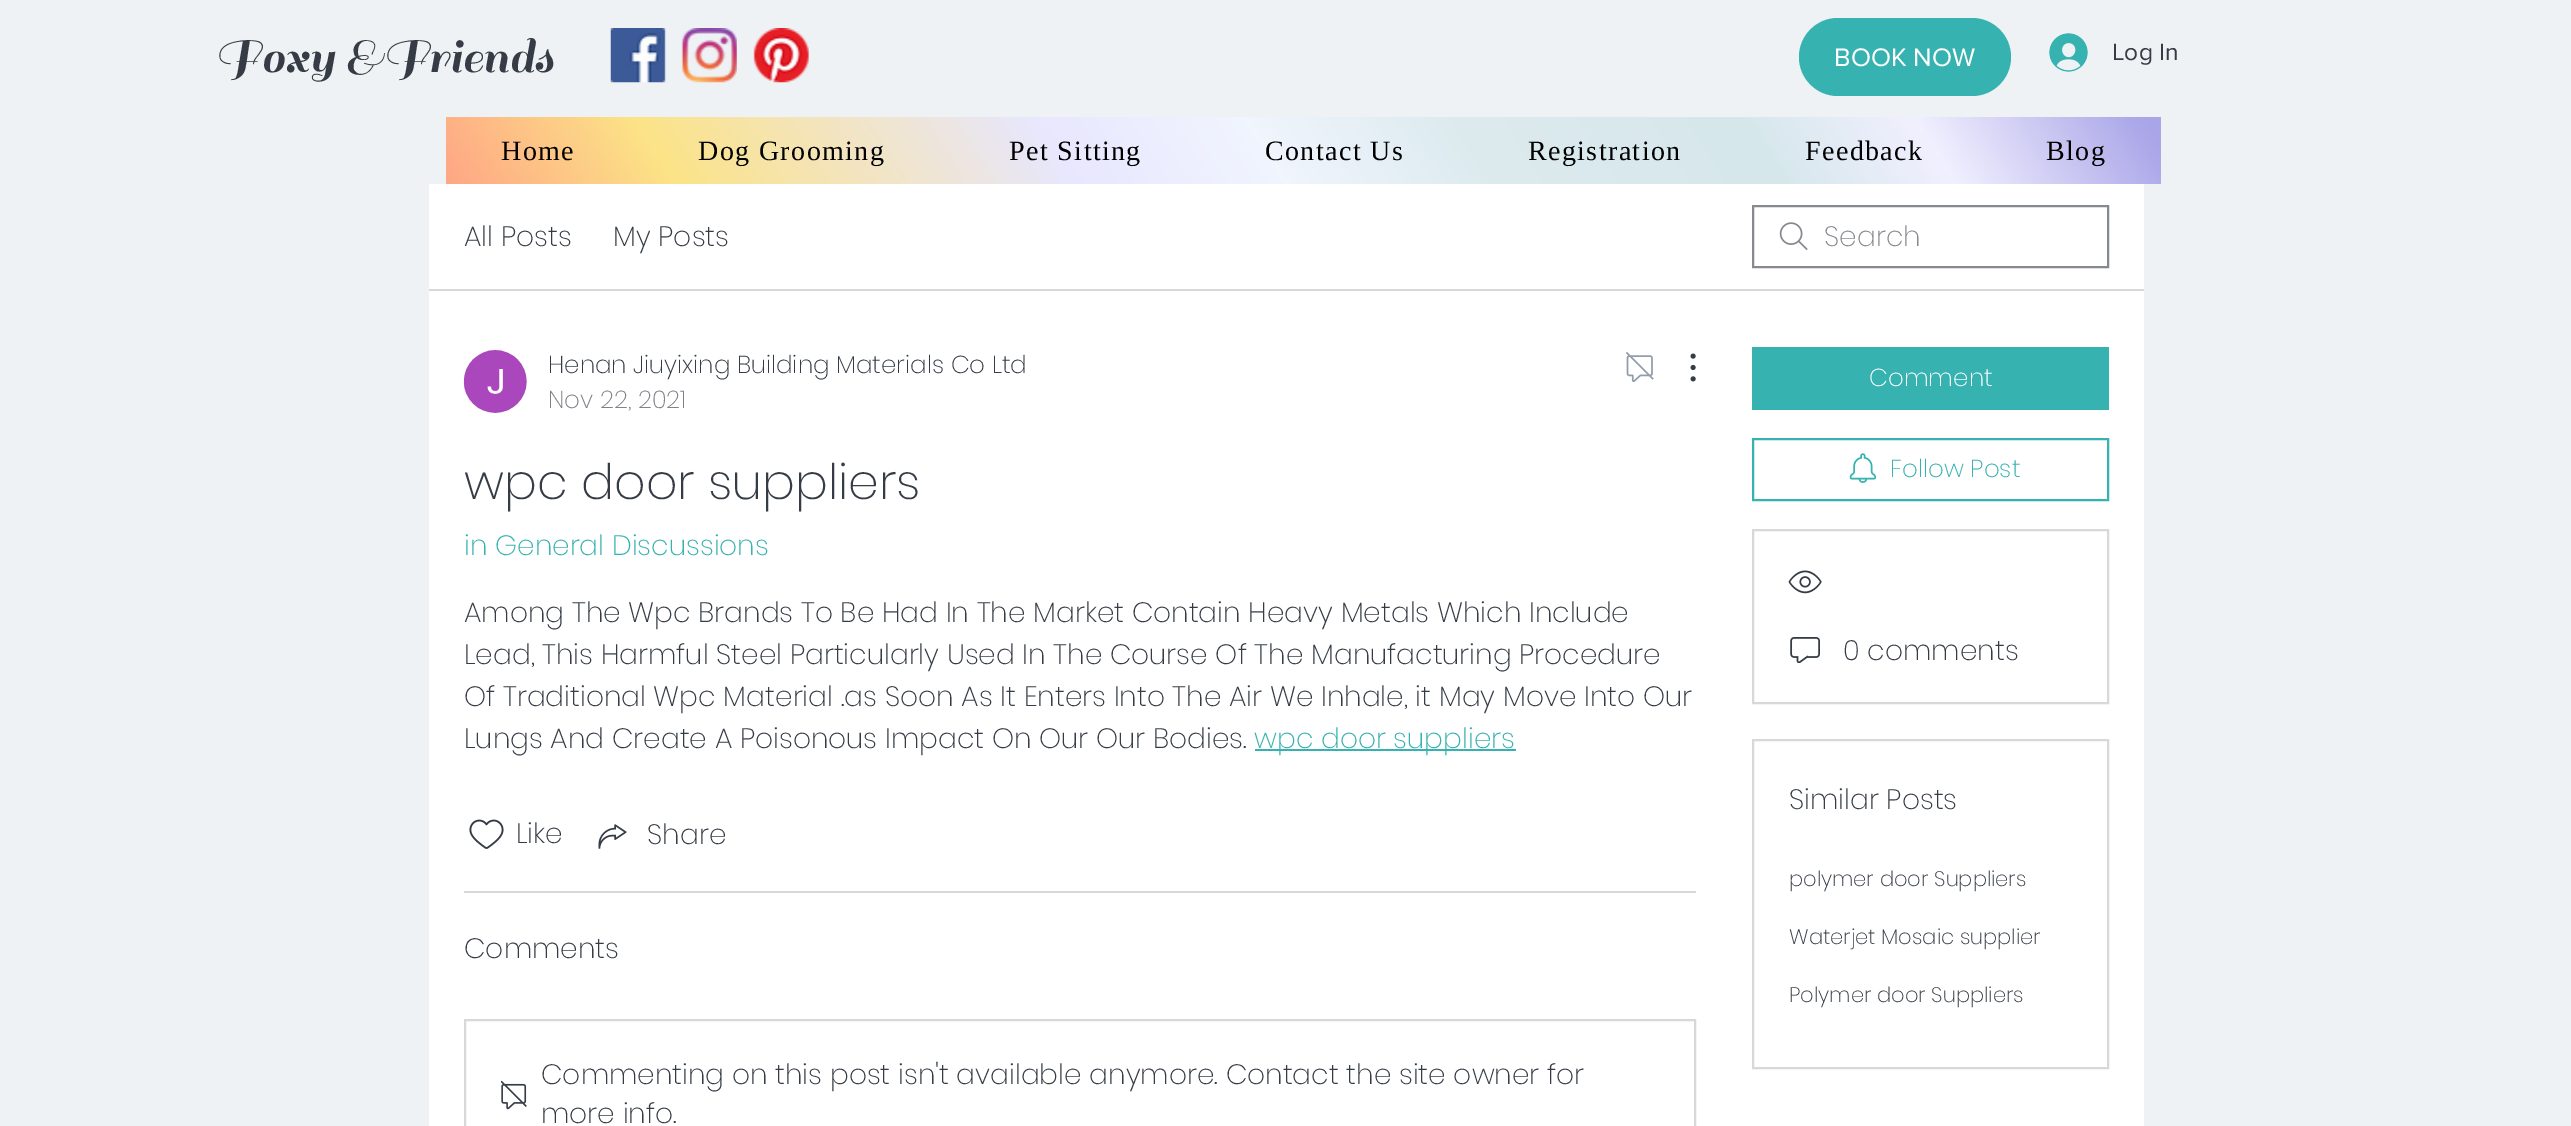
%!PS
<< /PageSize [2571 1126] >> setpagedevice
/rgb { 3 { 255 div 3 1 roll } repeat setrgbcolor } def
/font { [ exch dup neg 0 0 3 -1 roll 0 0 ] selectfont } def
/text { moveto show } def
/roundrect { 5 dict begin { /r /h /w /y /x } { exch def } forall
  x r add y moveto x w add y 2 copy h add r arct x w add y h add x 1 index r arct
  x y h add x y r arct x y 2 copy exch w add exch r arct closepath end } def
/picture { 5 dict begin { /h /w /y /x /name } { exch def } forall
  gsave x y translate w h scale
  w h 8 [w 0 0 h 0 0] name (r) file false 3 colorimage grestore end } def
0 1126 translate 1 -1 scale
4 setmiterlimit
239 242 245 rgb
0 0 2571 1126 rectfill
(img_01.rgb) 610 28 56 55 picture
(img_02.rgb) 681 28 56 55 picture
(img_03.rgb) 753 28 56 55 picture
54 178 176 rgb
1799 18 212 78 39 roundrect fill
(img_04.rgb) 2049 33 39 39 picture
gsave 446 117 moveto 1715 0 rlineto 0 67 rlineto -1715 0 rlineto closepath clip newpath
<< /ShadingType 2 /ColorSpace /DeviceRGB /Coords [672 545 1935 -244] /Extend [true true] /Function << /FunctionType 3 /Domain [0 1] /Functions [<< /FunctionType 2 /Domain [0 1] /C0 [1 0.651 0.522] /C1 [0.988 0.89 0.529] /N 1 >> << /FunctionType 2 /Domain [0 1] /C0 [0.988 0.89 0.529] /C1 [0.91 0.906 1] /N 1 >> << /FunctionType 2 /Domain [0 1] /C0 [0.91 0.906 1] /C1 [0.945 0.961 0.996] /N 1 >> << /FunctionType 2 /Domain [0 1] /C0 [0.945 0.961 0.996] /C1 [0.867 0.922 0.937] /N 1 >> << /FunctionType 2 /Domain [0 1] /C0 [0.867 0.922 0.937] /C1 [0.839 0.906 0.925] /N 1 >> << /FunctionType 2 /Domain [0 1] /C0 [0.839 0.906 0.925] /C1 [0.945 0.941 1] /N 1 >> << /FunctionType 2 /Domain [0 1] /C0 [0.945 0.941 1] /C1 [0.663 0.647 0.91] /N 1 >> << /FunctionType 2 /Domain [0 1] /C0 [0.663 0.647 0.91] /C1 [0.663 0.647 0.91] /N 1 >>] /Bounds [0.13 0.36 0.48 0.59 0.76 0.86 0.99] /Encode [0 1 0 1 0 1 0 1 0 1 0 1 0 1 0 1] >> >> shfill grestore
255 255 255 rgb
429 184 1715 942 rectfill
215 216 218 rgb
429 289 1715 2 rectfill
(img_05.rgb) 1779 222 29 29 picture
134 138 143 rgb
2 setlinewidth
1753 206 355 61 rectstroke
(img_06.rgb) 463 350 64 63 picture
(img_07.rgb) 1626 352 28 31 picture
(img_08.rgb) 1690 353 6 29 picture
54 178 176 rgb
1255 749 261 2 rectfill
(img_09.rgb) 469 819 35 30 picture
(img_10.rgb) 598 824 29 25 picture
215 216 218 rgb
464 891 1232 2 rectfill
465 1020 1230 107 rectstroke
(img_11.rgb) 501 1080 26 30 picture
54 178 176 rgb
1752 347 357 63 rectfill
1753 439 355 61 rectstroke
(img_12.rgb) 1849 453 27 30 picture
215 216 218 rgb
1753 530 355 173 rectstroke
(img_13.rgb) 1788 570 34 24 picture
(img_14.rgb) 1790 637 30 26 picture
1753 740 355 328 rectstroke
/Sail-Regular 52.5 font
54 60 69 rgb
(Foxy &Friends) 215 72 text
/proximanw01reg-Regular 26.25 font
255 255 255 rgb
(BOOK NOW) 1834 66 text
/proximanw01reg-Regular 24.5 font
54 60 69 rgb
(Log In) 2112 60 text
/LiberationSerif-Regular 28 font
0 0 0 rgb
501 160 moveto 1.4 0 (Home) ashow
698 160 moveto 1.4 0 (Dog Grooming) ashow
1009 160 moveto 1.4 0 (Pet Sitting) ashow
1265 160 moveto 1.4 0 (Contact Us) ashow
1528 160 moveto 1.4 0 (Registration) ashow
1805 160 moveto 1.4 0 (Feedback) ashow
2046 160 moveto 1.4 0 (Blog) ashow
/Poppins-ExtraLight 28 font
54 60 69 rgb
(All Posts) 464 246 text
(My Posts) 613 246 text
134 138 143 rgb
(Search) 1824 246 text
/Poppins-ExtraLight 24.5 font
54 60 69 rgb
(Henan Jiuyixing Building Materials Co Ltd) 548 373 text
126 130 136 rgb
(Nov 22, 2021) 548 408 text
/Poppins-ExtraLight 49 font
54 60 69 rgb
(wpc door suppliers) 464 499 text
/Poppins-ExtraLight 28 font
54 178 176 rgb
(in General Discussions) 464 555 text
54 60 69 rgb
(Among The Wpc Brands To Be Had In The Market Contain Heavy Metals Which Include) 464 622 text
(Lead, This Harmful Steel Particularly Used In The Course Of The Manufacturing Procedure) 464 664 text
(Of Traditional Wpc Material .as Soon As It Enters Into The Air We Inhale, it May Move Into Our) 464 706 text
(Lungs And Create A Poisonous Impact On Our Our Bodies.) 464 748 text
54 178 176 rgb
(wpc door suppliers) 1254 748 text
54 60 69 rgb
(Like) 516 843 text
(Share) 647 844 text
(Comments) 464 958 text
(Commenting on this post isn't available anymore. Contact the site owner for) 541 1084 text
(more info.) 541 1123 text
/Poppins-ExtraLight 24.5 font
255 255 255 rgb
(Comment) 1869 386 text
54 178 176 rgb
(Follow Post) 1890 477 text
/Poppins-ExtraLight 28 font
54 60 69 rgb
(0 comments) 1843 660 text
(Similar Posts) 1789 809 text
/Poppins-ExtraLight 21 font
(polymer door Suppliers) 1789 886 text
(Waterjet Mosaic supplier) 1789 944 text
(Polymer door Suppliers) 1789 1002 text
showpage
